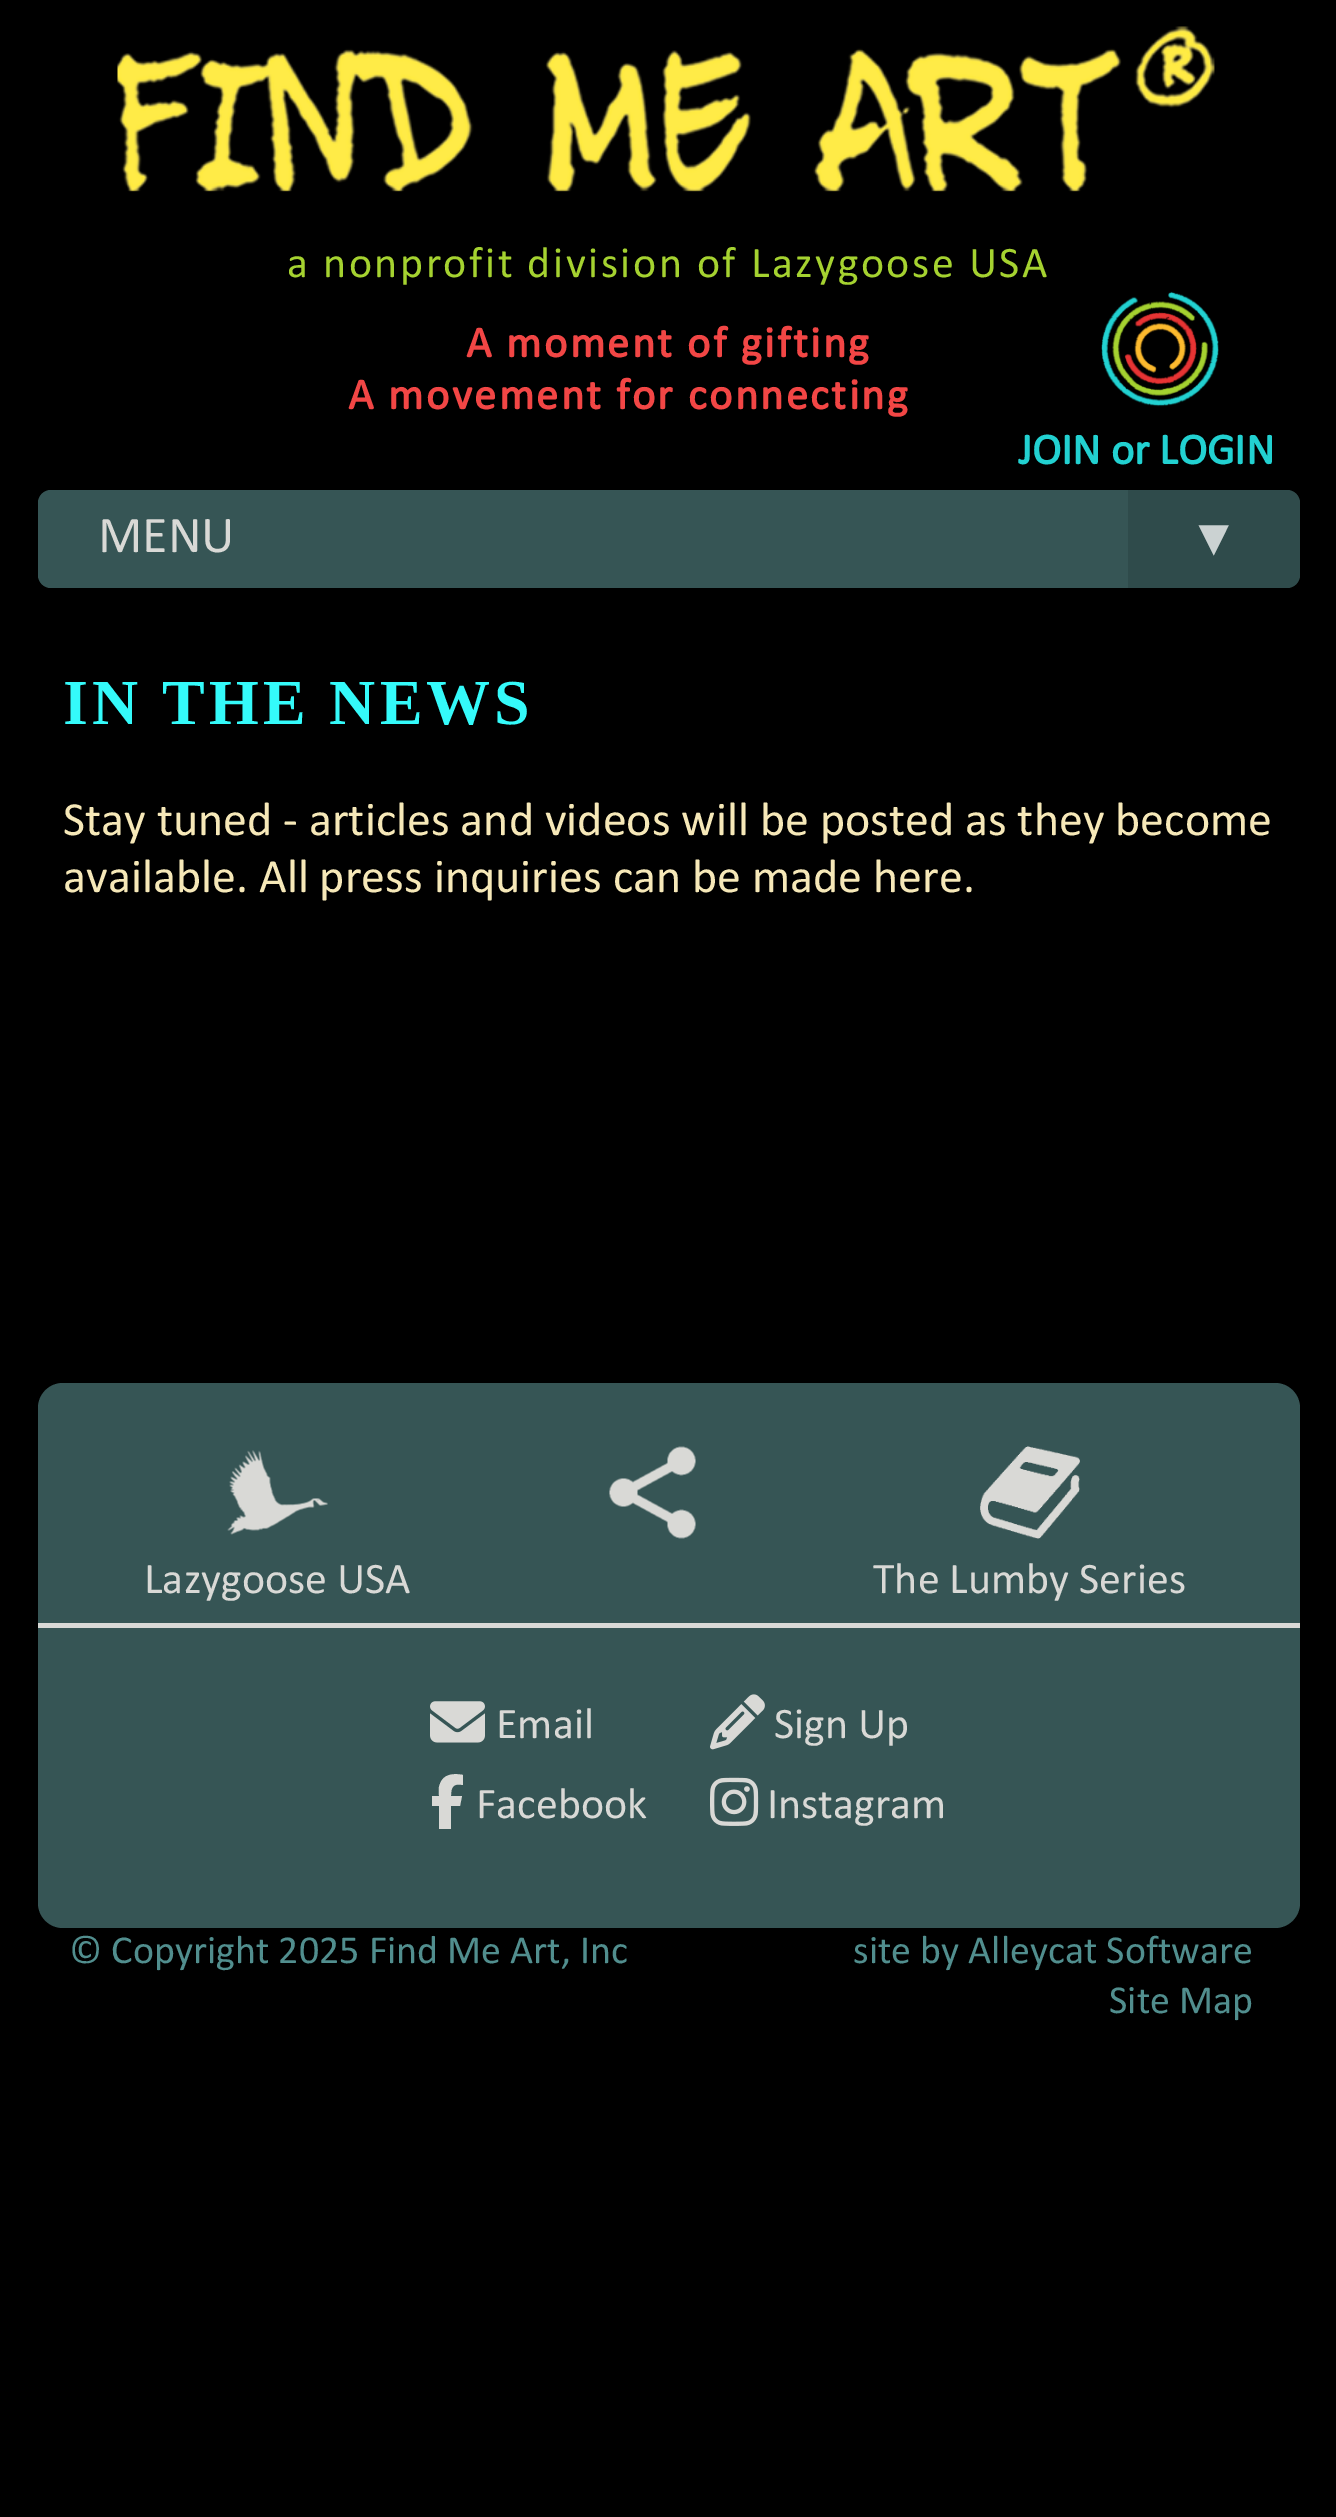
%!PS
<< /PageSize [1336 2517] /PageUsesTransparency true >> setpagedevice
/rgb { 3 { 255 div 3 1 roll } repeat setrgbcolor } def
/font { [ exch dup neg 0 0 3 -1 roll 0 0 ] selectfont } def
/text { moveto show } def
/alpha { dup .setfillconstantalpha .setstrokeconstantalpha } def
/roundrect { 5 dict begin { /r /h /w /y /x } { exch def } forall
  x r add y moveto x w add y 2 copy h add r arct x w add y h add x 1 index r arct
  x y h add x y r arct x y 2 copy exch w add exch r arct closepath end } def
/picture { 5 dict begin { /h /w /y /x /name } { exch def } forall
  gsave x y translate w h scale
  w h 8 [w 0 0 h 0 0] name (r) file false 3 colorimage grestore end } def
0 .pushpdf14devicefilter
0 2517 translate 1 -1 scale
4 setmiterlimit
0 0 0 rgb
0 0 1336 2517 rectfill
(img_01.rgb) 117 26 1098 166 picture
(img_02.rgb) 1101 291 118 116 picture
54 85 85 rgb
38 490 1262 98 13 roundrect fill
38 490 1262 98 15 roundrect fill
0.12 alpha
0 0 0 rgb
1128 490 172 98 rectfill
1 alpha
54 85 85 rgb
38 1383 1262 545 25 roundrect fill
217 217 214 rgb
38 1623 1262 5 rectfill
(img_03.rgb) 609 1446 87 93 picture
(img_04.rgb) 227 1450 101 85 picture
(img_05.rgb) 980 1446 100 93 picture
(img_06.rgb) 430 1701 55 42 picture
(img_07.rgb) 710 1694 55 56 picture
439 1806 moveto 0 23 rlineto 0 -23 rlineto 0 23 rlineto 12 0 rlineto 0 -23 rlineto 9 0 rlineto 2 -10 rlineto -11 0 rlineto 0 -9 2 -13 12 -11 rcurveto 0 -10 rlineto -9 -2 -20 -1 -23 9 rcurveto -2 4 -1 8 -1 12 rcurveto -7 0 rlineto 0 10 rlineto closepath fill
(img_08.rgb) 710 1777 49 49 picture
/Calibri-Regular 44 font
165 210 48 rgb
287 277 moveto 2.5 0 (a nonprofit division of Lazygoose USA) ashow
/Calibri-Bold 44 font
242 70 69 rgb
466 357 moveto 2.5 0 (A moment of gifting) ashow
348 409 moveto 2.5 0 (A movement for connecting) ashow
34 209 209 rgb
(JOIN or LOGIN) 1018 464 text
/Calibri-Regular 52 font
217 217 214 rgb
(MENU) 98 552 text
/LiberationSans-Regular 52 font
203 210 210 rgb
(▼) 1188 555 text
/LiberationSerif-Bold 64 font
52 250 250 rgb
63 724 moveto 4 0 (IN THE NEWS) ashow
/Calibri-Regular 48 font
246 232 184 rgb
(Stay tuned - articles and videos will be posted as they become) 63 835 text
(available. All press inquiries can be made here) 63 892 text
(.) 963 892 text
/Calibri-Regular 44 font
217 217 214 rgb
(Lazygoose USA) 144 1593 text
(The Lumby Series) 873 1593 text
(Email) 496 1738 text
(Sign Up) 774 1738 text
(Facebook) 476 1818 text
(Instagram) 767 1818 text
/Calibri-Regular 40 font
81 142 142 rgb
(© Copyright 2025 Find Me Art, Inc) 69 1963 text
(site by Alleycat Software) 853 1963 text
(Site Map) 1109 2013 text
.poppdf14devicefilter showpage
